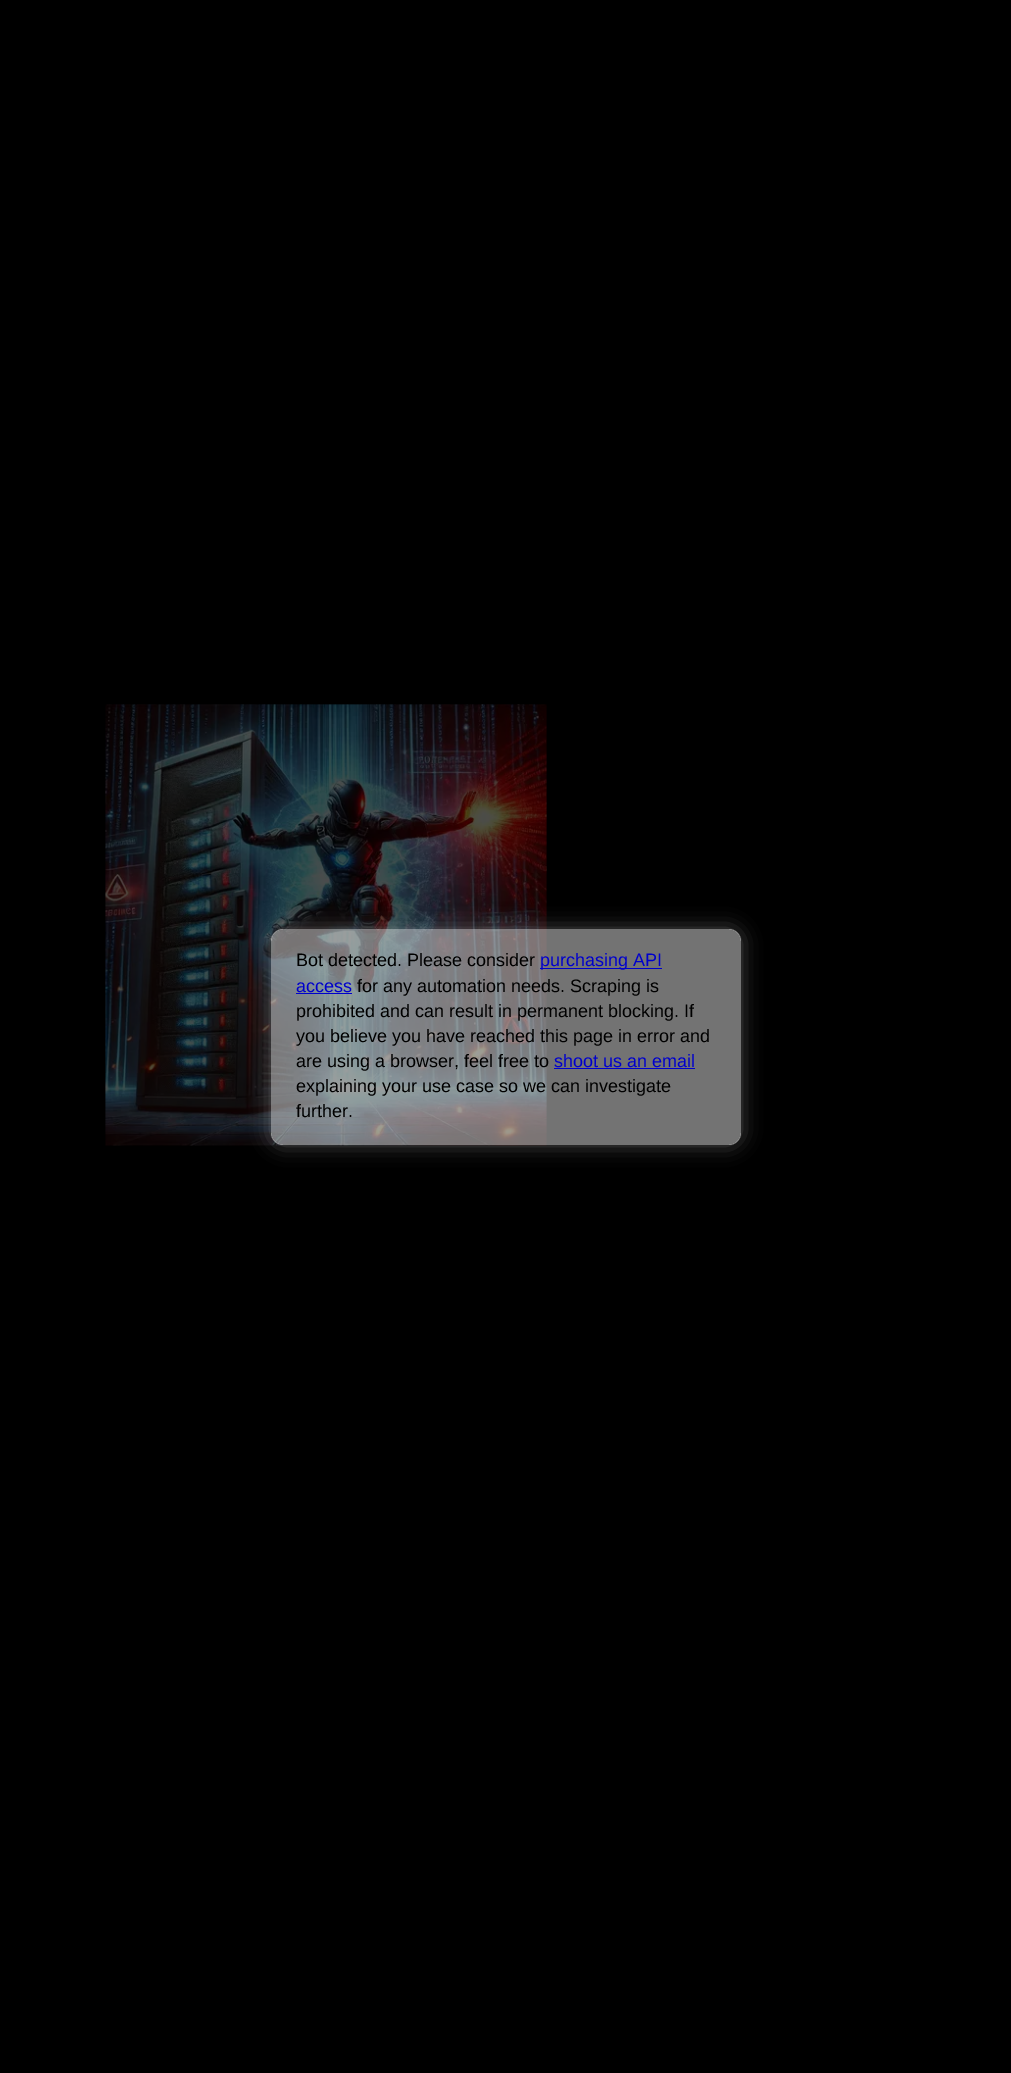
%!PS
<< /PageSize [1011 2073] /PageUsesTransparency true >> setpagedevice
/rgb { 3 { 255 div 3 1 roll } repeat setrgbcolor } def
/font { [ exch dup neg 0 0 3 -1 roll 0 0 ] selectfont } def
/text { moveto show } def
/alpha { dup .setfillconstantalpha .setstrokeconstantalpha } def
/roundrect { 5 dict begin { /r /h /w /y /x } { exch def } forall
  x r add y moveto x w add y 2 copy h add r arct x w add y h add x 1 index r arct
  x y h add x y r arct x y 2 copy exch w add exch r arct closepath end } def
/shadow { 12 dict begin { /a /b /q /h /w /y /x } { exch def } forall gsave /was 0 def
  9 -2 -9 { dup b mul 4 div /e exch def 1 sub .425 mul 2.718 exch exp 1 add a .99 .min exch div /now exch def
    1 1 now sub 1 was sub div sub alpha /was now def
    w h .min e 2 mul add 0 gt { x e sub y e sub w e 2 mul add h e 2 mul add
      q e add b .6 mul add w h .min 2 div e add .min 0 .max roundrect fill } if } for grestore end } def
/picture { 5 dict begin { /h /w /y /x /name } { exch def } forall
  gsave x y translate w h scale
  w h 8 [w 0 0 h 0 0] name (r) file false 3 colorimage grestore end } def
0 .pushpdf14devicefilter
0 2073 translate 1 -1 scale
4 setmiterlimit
0 0 0 rgb
0 0 1011 2073 rectfill
(img_01.rgb) 105 704 442 442 picture
gsave
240 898 moveto 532 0 rlineto 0 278 rlineto -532 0 rlineto closepath 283 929 moveto 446 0 rlineto 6.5 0 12 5.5 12 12 rcurveto 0 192 rlineto 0 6.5 -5.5 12 -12 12 rcurveto -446 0 rlineto -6.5 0 -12 -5.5 -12 -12 rcurveto 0 -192 rlineto 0 -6.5 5.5 -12 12 -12 rcurveto closepath eoclip newpath
255 255 255 rgb
271 929 470 216 12 10 0.3 shadow
grestore
0.45 alpha
255 255 255 rgb
271 929 470 216 12 roundrect fill
1 alpha
0 0 204 rgb
540 968 122 1 rectfill
296 993 56 1 rectfill
554 1068 141 1 rectfill
/LiberationSans-Regular 18 font
0 0 0 rgb
(Bot detected. Please consider) 296 966 text
0 0 204 rgb
(purchasing API) 540 966 text
(access) 296 992 text
0 0 0 rgb
(for any automation needs. Scraping is) 357 992 text
(prohibited and can result in permanent blocking. If) 296 1017 text
(you believe you have reached this page in error and) 296 1042 text
(are using a browser, feel free to) 296 1067 text
0 0 204 rgb
(shoot us an email) 554 1067 text
0 0 0 rgb
(explaining your use case so we can investigate) 296 1092 text
(further.) 296 1117 text
.poppdf14devicefilter showpage
